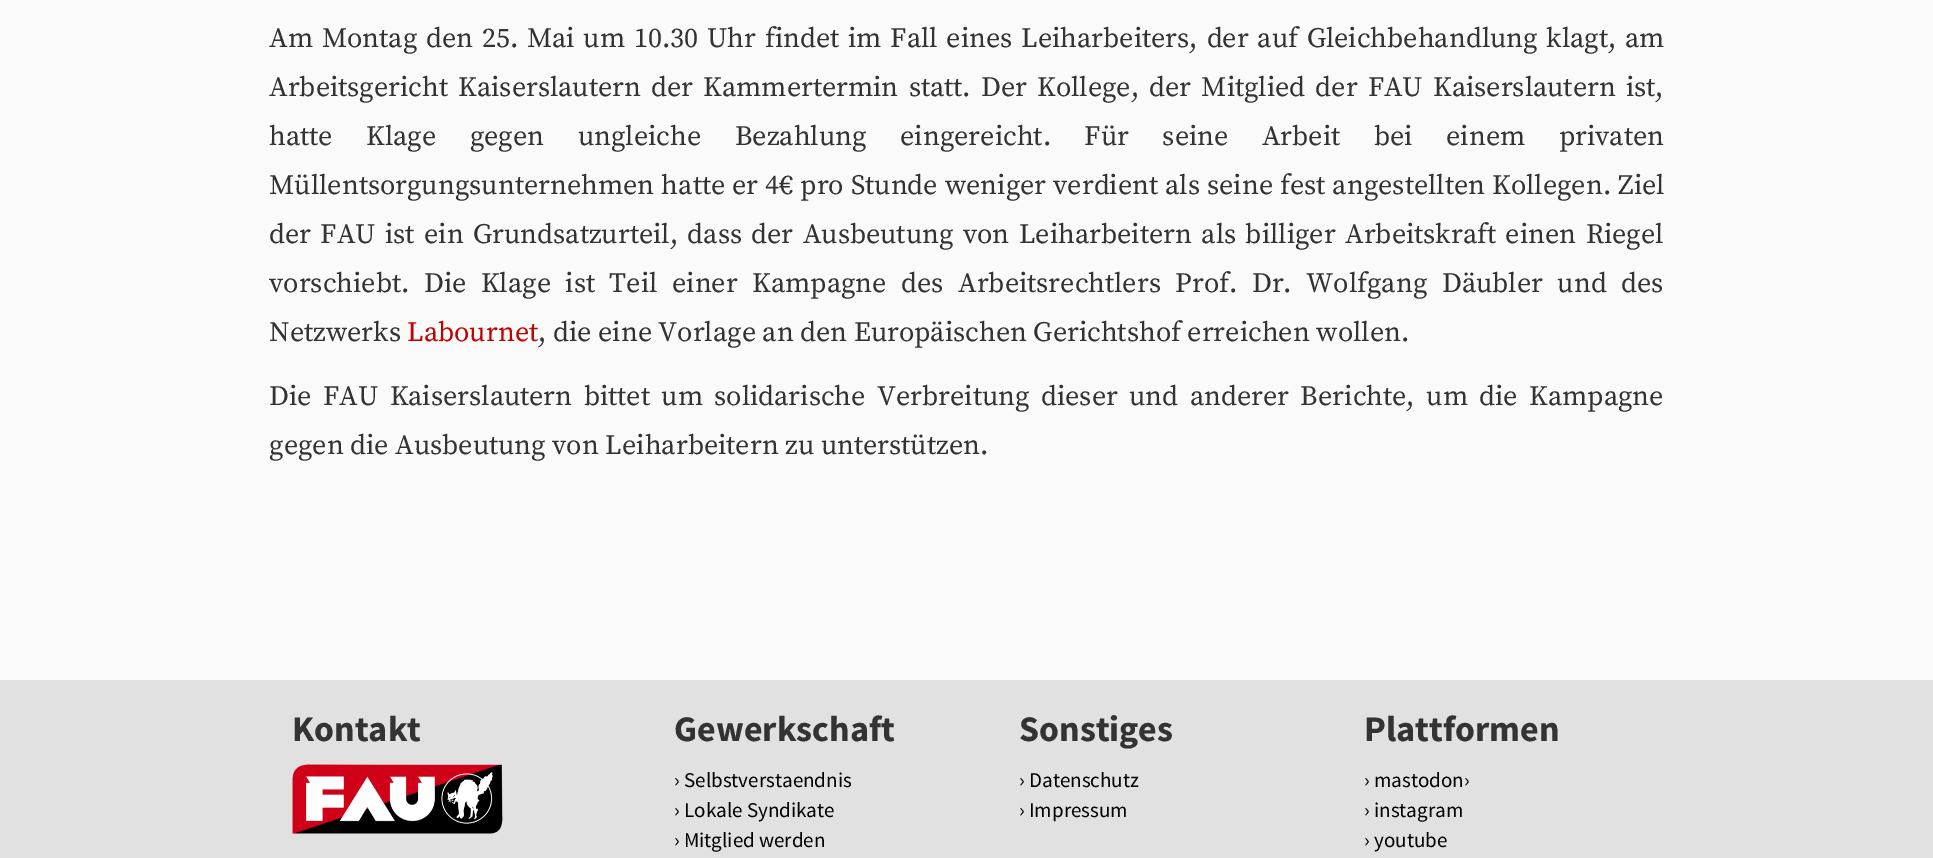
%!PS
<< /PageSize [1933 858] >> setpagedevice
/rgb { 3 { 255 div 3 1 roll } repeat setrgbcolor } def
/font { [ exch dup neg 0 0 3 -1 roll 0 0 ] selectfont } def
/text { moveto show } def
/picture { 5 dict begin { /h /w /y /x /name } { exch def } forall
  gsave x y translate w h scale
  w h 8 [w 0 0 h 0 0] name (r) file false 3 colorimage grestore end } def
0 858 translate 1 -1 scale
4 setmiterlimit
250 250 250 rgb
0 0 1933 858 rectfill
225 225 225 rgb
0 680 1933 178 rectfill
(img_01.rgb) 292 764 211 70 picture
/SourceSerifPro-Regular 28 font
51 51 51 rgb
269 47 moveto 2.25 0 32 (Am Montag den 25. Mai um 10.30 Uhr findet im Fall eines Leiharbeiters, der auf Gleichbehandlung klagt, am) widthshow
269 96 moveto 3.6 0 32 (Arbeitsgericht Kaiserslautern der Kammertermin statt. Der Kollege, der Mitglied der FAU Kaiserslautern ist,) widthshow
269 145 moveto 27 0 32 (hatte Klage gegen ungleiche Bezahlung eingereicht. Für seine Arbeit bei einem privaten) widthshow
269 194 moveto 0.5 0 32 (Müllentsorgungsunternehmen hatte er 4€ pro Stunde weniger verdient als seine fest angestellten Kollegen. Ziel) widthshow
269 243 moveto 2.9 0 32 (der FAU ist ein Grundsatzurteil, dass der Ausbeutung von Leiharbeitern als billiger Arbeitskraft einen Riegel) widthshow
269 292 moveto 8 0 32 (vorschiebt. Die Klage ist Teil einer Kampagne des Arbeitsrechtlers Prof. Dr. Wolfgang Däubler und des) widthshow
(Netzwerks) 269 341 text
192 3 1 rgb
(Labournet) 407 341 text
51 51 51 rgb
(, die eine Vorlage an den Europäischen Gerichtshof erreichen wollen.) 538 341 text
269 405 moveto 4.9 0 32 (Die FAU Kaiserslautern bittet um solidarische Verbreitung dieser und anderer Berichte, um die Kampagne) widthshow
(gegen die Ausbeutung von Leiharbeitern zu unterstützen.) 269 454 text
/SourceSansPro-Bold 36 font
(Kontakt) 292 741 text
(Gewerkschaft) 674 741 text
/SourceSansPro-Regular 21 font
0 0 0 rgb
(› Selbstverstaendnis) 674 787 text
(› Lokale Syndikate) 674 817 text
(› Mitglied werden) 674 847 text
/SourceSansPro-Bold 36 font
51 51 51 rgb
(Sonstiges) 1019 741 text
/SourceSansPro-Regular 21 font
0 0 0 rgb
(› Datenschutz) 1019 787 text
(› Impressum) 1019 817 text
/SourceSansPro-Bold 36 font
51 51 51 rgb
(Plattformen) 1364 741 text
/SourceSansPro-Regular 21 font
0 0 0 rgb
(› mastodon›) 1364 787 text
(› instagram) 1364 817 text
(› youtube) 1364 847 text
showpage
